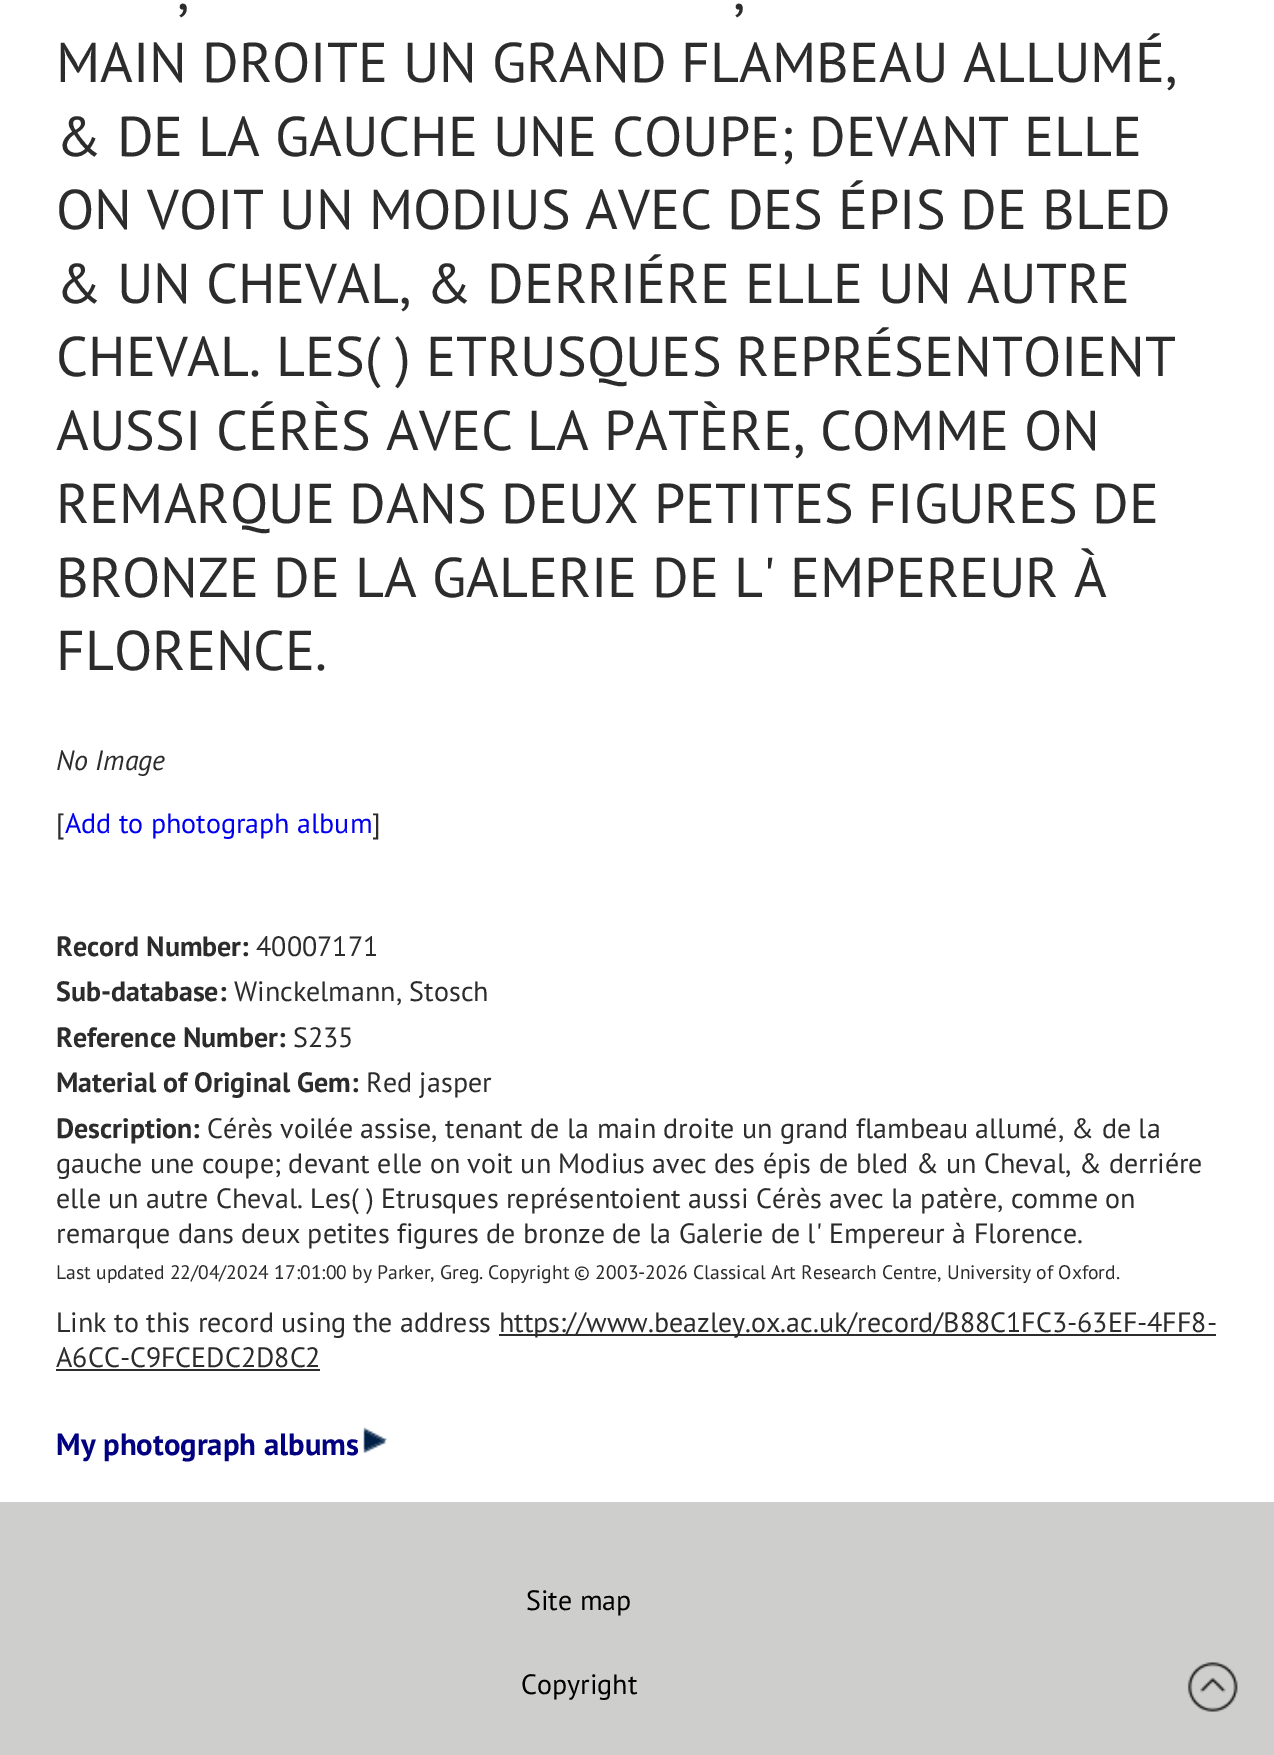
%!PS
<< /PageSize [1274 1755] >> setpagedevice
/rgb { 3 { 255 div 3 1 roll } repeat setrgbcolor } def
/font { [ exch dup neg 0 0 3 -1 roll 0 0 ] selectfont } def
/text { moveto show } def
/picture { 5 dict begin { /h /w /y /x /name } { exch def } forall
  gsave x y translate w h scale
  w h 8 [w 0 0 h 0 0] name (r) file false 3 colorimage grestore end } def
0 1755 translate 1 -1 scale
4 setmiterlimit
255 255 255 rgb
0 0 1274 1755 rectfill
44 44 44 rgb
499 1334 717 2 rectfill
56 1369 264 2 rectfill
(img_01.rgb) 363 1427 24 26 picture
206 206 204 rgb
0 1502 1274 253 rectfill
(img_02.rgb) 1187 1662 51 50 picture
/PTSans-Regular 56 font
44 44 44 rgb
(,) 177 9 text
(,) 733 9 text
(MAIN DROITE UN GRAND FLAMBEAU ALLUMÉ,) 56 82 text
(& DE LA GAUCHE UNE COUPE; DEVANT ELLE) 56 156 text
(ON VOIT UN MODIUS AVEC DES ÉPIS DE BLED) 56 229 text
(& UN CHEVAL, & DERRIÉRE ELLE UN AUTRE) 56 303 text
(CHEVAL. LES\( \) ETRUSQUES REPRÉSENTOIENT) 56 376 text
(AUSSI CÉRÈS AVEC LA PATÈRE, COMME ON) 56 450 text
(REMARQUE DANS DEUX PETITES FIGURES DE) 56 523 text
(BRONZE DE LA GALERIE DE L' EMPEREUR À) 56 597 text
(FLORENCE.) 56 670 text
/PTSans-Italic 28 font
(No Image) 56 770 text
/PTSans-Regular 28 font
([) 56 833 text
0 0 238 rgb
(Add to photograph album) 65 833 text
44 44 44 rgb
(]) 372 833 text
/PTSans-Bold 28 font
(Record Number:) 56 956 text
/PTSans-Regular 28 font
(40007171) 256 956 text
/PTSans-Bold 28 font
(Sub-database:) 56 1001 text
/PTSans-Regular 28 font
(Winckelmann, Stosch) 234 1001 text
/PTSans-Bold 28 font
(Reference Number:) 56 1047 text
/PTSans-Regular 28 font
(S235) 293 1047 text
/PTSans-Bold 28 font
(Material of Original Gem:) 56 1092 text
/PTSans-Regular 28 font
(Red jasper) 366 1092 text
/PTSans-Bold 28 font
(Description:) 56 1138 text
/PTSans-Regular 28 font
(Cérès voilée assise, tenant de la main droite un grand flambeau allumé, & de la) 207 1138 text
(gauche une coupe; devant elle on voit un Modius avec des épis de bled & un Cheval, & derriére) 56 1173 text
(elle un autre Cheval. Les\( \) Etrusques représentoient aussi Cérès avec la patère, comme on) 56 1208 text
(remarque dans deux petites figures de bronze de la Galerie de l' Empereur à Florence.) 56 1243 text
/PTSans-Regular 19.6 font
(Last updated 22/04/2024 17:01:00 by Parker, Greg.) 56 1279 text
(Copyright © 2003-2026 Classical Art Research Centre, University of Oxford.) 488 1279 text
/PTSans-Regular 28 font
(Link to this record using the address) 56 1332 text
(https://www.beazley.ox.ac.uk/record/B88C1FC3-63EF-4FF8-) 499 1332 text
(A6CC-C9FCEDC2D8C2) 56 1367 text
/PTSans-Bold 30.75 font
0 0 128 rgb
(My photograph albums) 56 1455 text
/PTSans-Regular 28 font
0 0 0 rgb
(Site map) 526 1610 text
(Copyright) 521 1694 text
showpage
